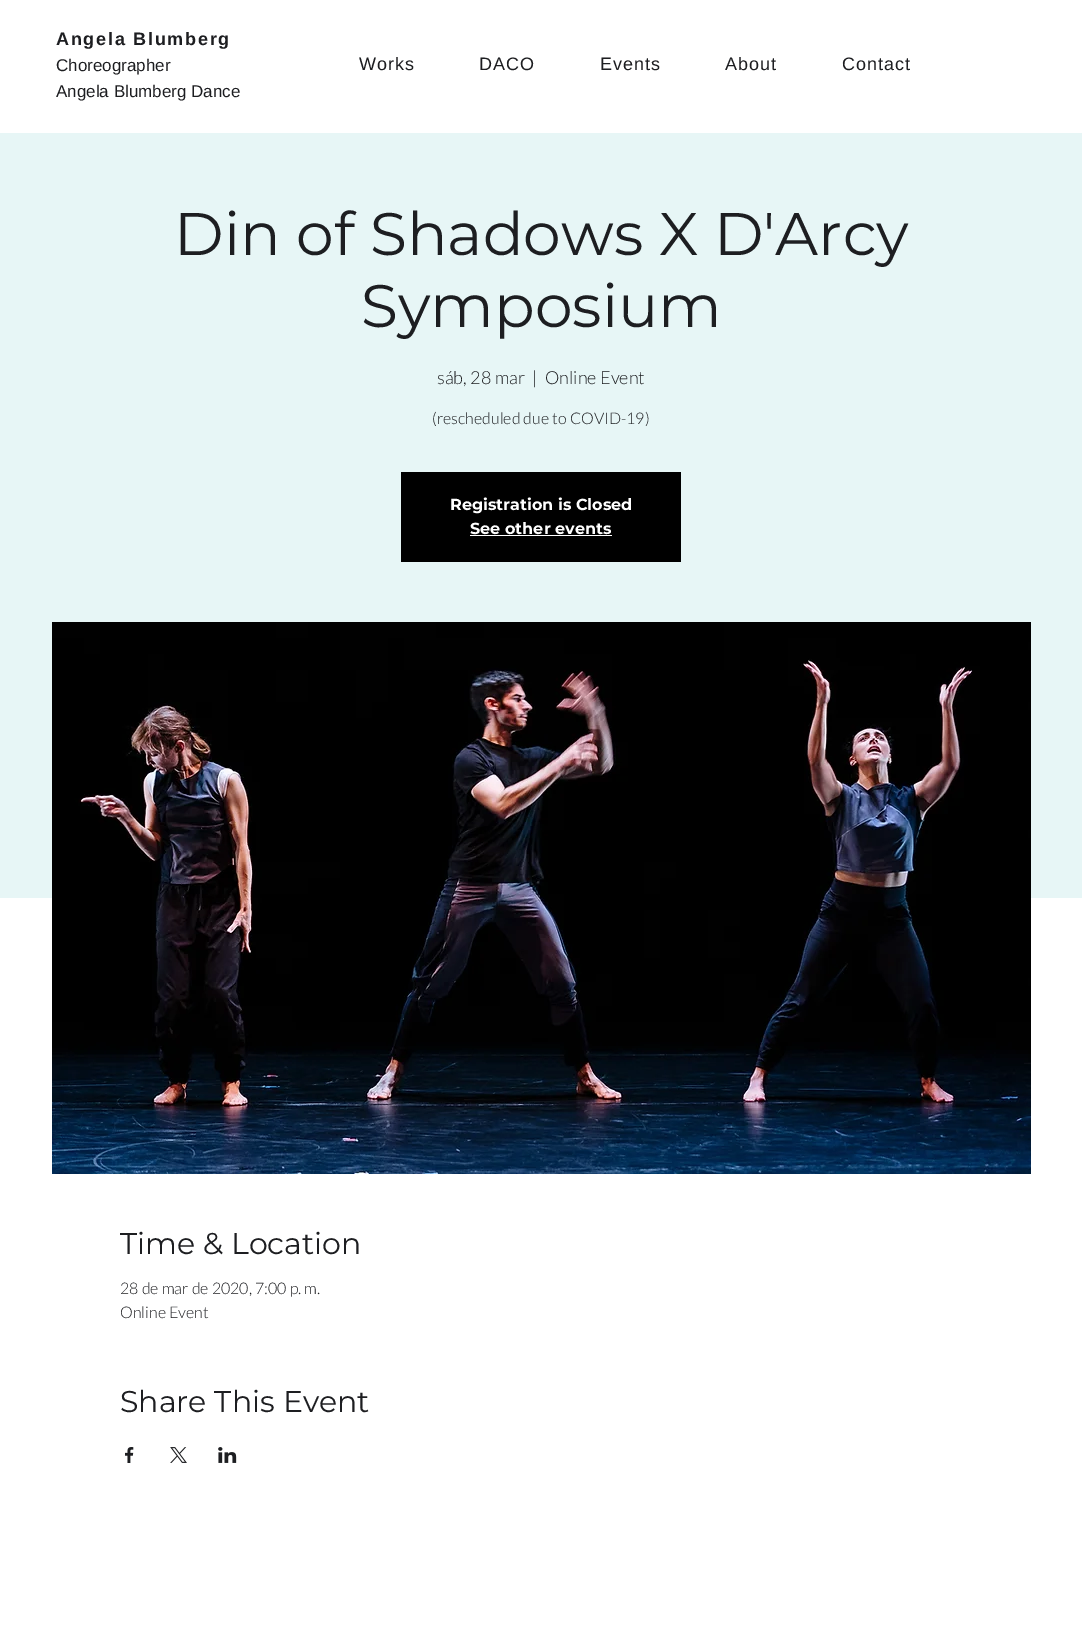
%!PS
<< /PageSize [1082 1628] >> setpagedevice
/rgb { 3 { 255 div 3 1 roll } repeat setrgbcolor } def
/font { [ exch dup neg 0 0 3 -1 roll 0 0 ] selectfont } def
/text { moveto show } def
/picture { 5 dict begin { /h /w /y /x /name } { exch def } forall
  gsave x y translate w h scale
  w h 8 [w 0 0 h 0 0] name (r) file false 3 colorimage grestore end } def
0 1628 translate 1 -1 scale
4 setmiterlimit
255 255 255 rgb
0 0 1082 1628 rectfill
231 246 246 rgb
0 133 1082 765 rectfill
0 0 0 rgb
401 472 280 90 rectfill
255 255 255 rgb
470 535 142 1 rectfill
(img_01.rgb) 52 622 979 552 picture
(img_02.rgb) 125 1447 9 16 picture
(img_03.rgb) 170 1447 17 16 picture
(img_04.rgb) 218 1447 19 16 picture
/LiberationSans-Bold 18 font
29 30 33 rgb
56 45 moveto 1.75 0 (Angela Blumberg) ashow
/LiberationSans-Regular 17 font
(Choreographer) 56 71 text
(Angela Blumberg Dance) 56 97 text
/LiberationSans-Regular 18 font
359 70 moveto 1 0 (Works) ashow
479 70 moveto 1 0 (DACO) ashow
600 70 moveto 1 0 (Events) ashow
725 70 moveto 1 0 (About) ashow
842 70 moveto 1 0 (Contact) ashow
/Montserrat-Regular 60 font
(Din of Shadows X D'Arcy) 174 255 text
(Symposium) 361 327 text
/Lato-Light 18 font
(sáb, 28 mar) 437 384 text
(|) 532 384 text
(Online Event) 545 384 text
/Lato-Light 16 font
(\(rescheduled due to COVID-19\)) 432 424 text
/Montserrat-Bold 16 font
255 255 255 rgb
(Registration is Closed) 450 510 text
(See other events) 470 534 text
/Montserrat-Regular 30 font
29 30 33 rgb
(Time & Location) 120 1254 text
/Lato-Light 16 font
(28 de mar de 2020, 7:00 p. m.) 120 1294 text
(Online Event) 120 1318 text
/Montserrat-Regular 30 font
(Share This Event) 120 1412 text
showpage
